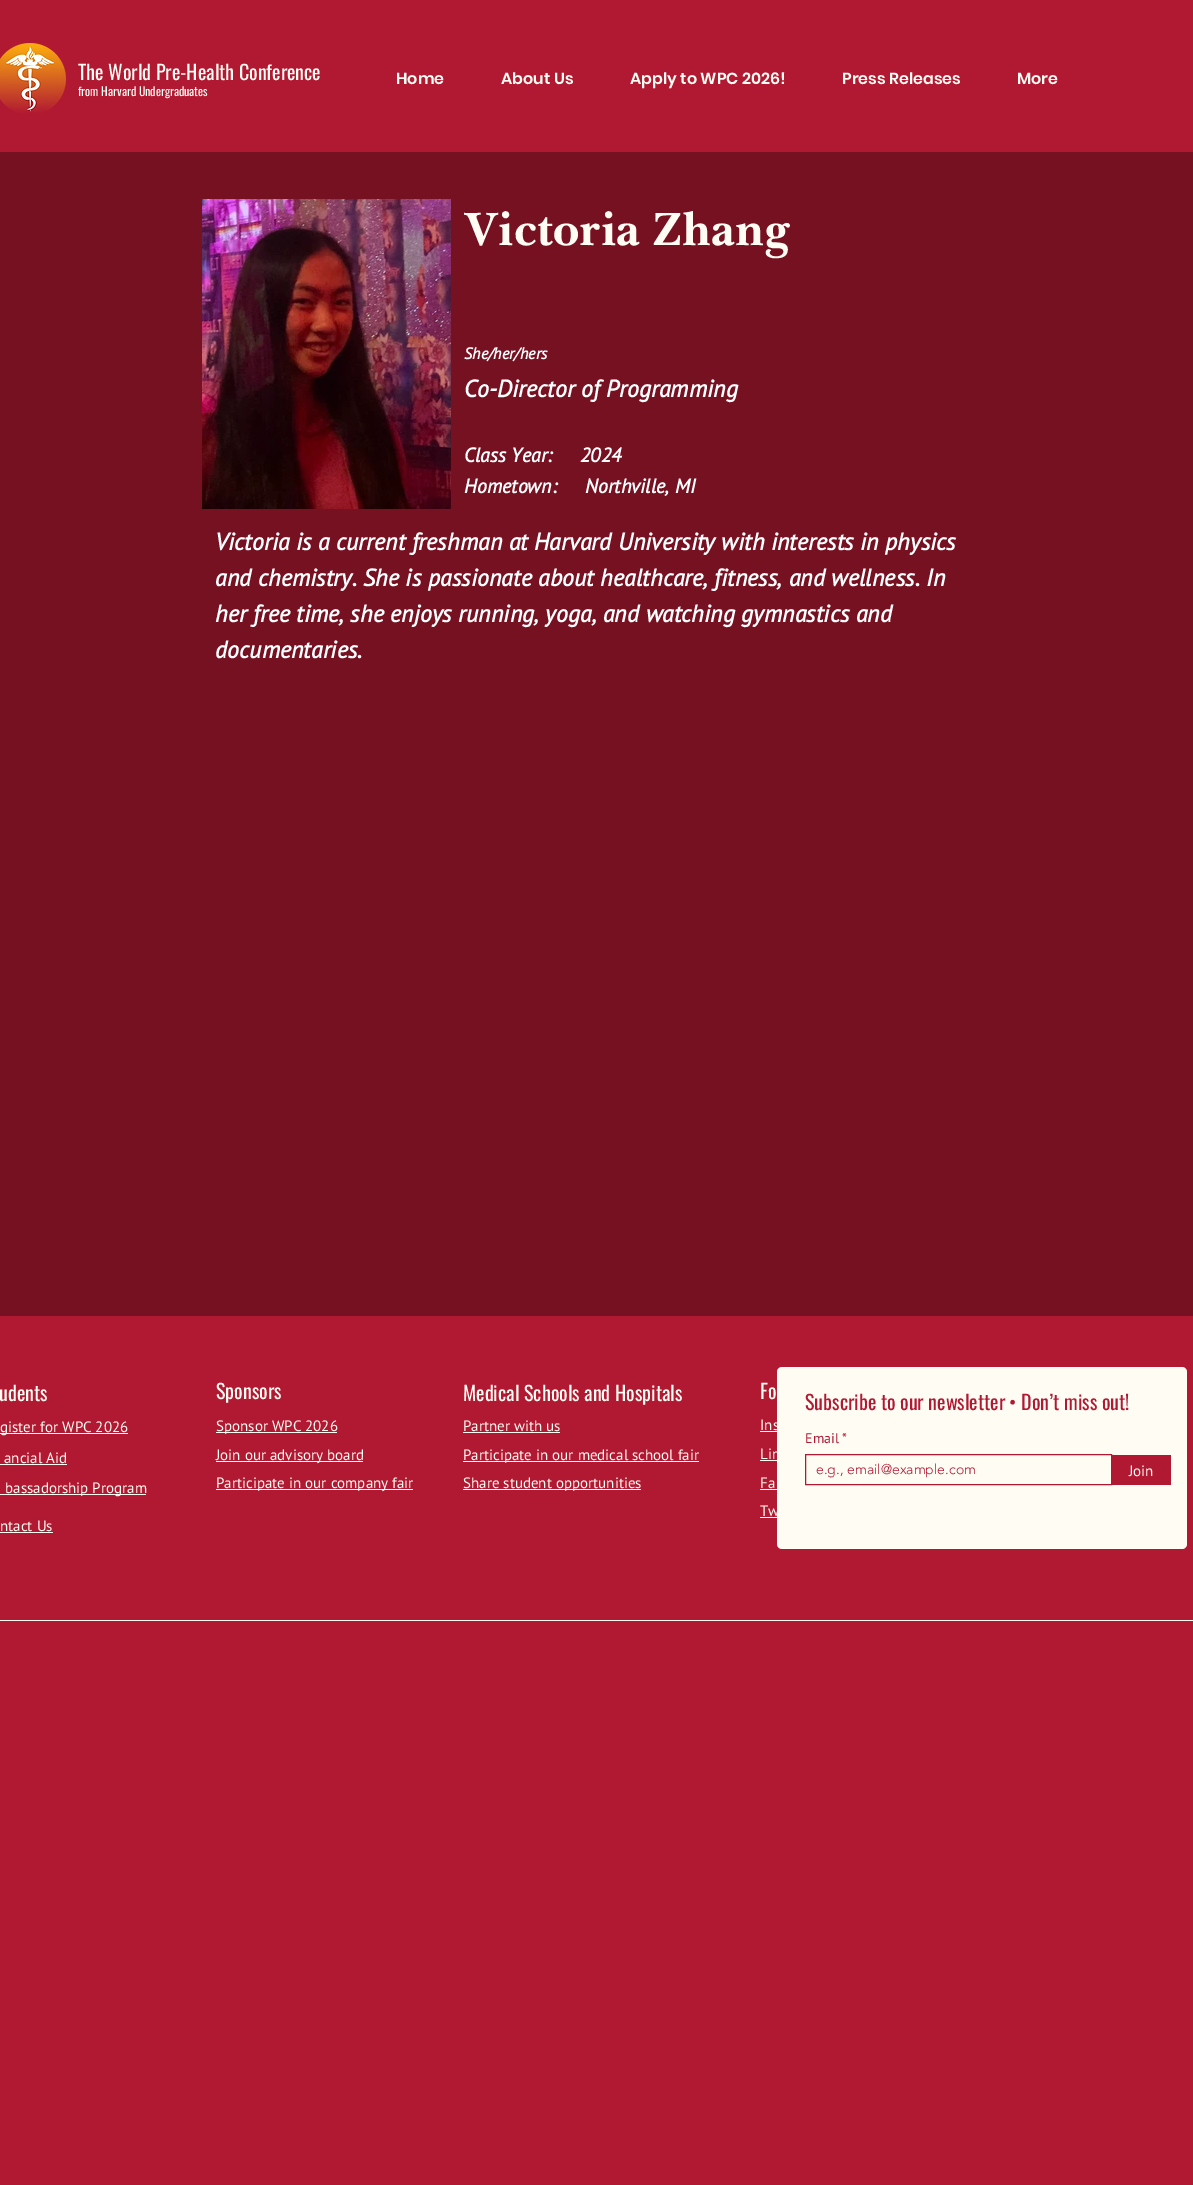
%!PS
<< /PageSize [1193 2185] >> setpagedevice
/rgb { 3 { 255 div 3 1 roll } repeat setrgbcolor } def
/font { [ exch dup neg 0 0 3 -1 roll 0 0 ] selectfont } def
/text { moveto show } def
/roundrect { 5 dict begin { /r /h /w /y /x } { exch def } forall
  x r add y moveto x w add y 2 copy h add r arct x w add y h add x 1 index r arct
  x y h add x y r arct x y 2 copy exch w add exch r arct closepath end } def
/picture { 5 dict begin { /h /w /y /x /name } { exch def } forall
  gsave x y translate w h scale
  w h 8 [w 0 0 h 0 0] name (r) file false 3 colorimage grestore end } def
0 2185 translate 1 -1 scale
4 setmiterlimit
177 25 51 rgb
0 0 1193 2185 rectfill
(img_01.rgb) 0 43 66 70 picture
118 17 34 rgb
0 152 1193 1164 rectfill
(img_02.rgb) 202 199 249 310 picture
255 252 243 rgb
463 1432 97 1 rectfill
463 1461 236 1 rectfill
463 1489 178 1 rectfill
760 1431 17 1 rectfill
760 1460 17 1 rectfill
760 1489 17 1 rectfill
760 1517 17 1 rectfill
0 1433 128 1 rectfill
216 1432 121 1 rectfill
0 1464 67 1 rectfill
216 1461 147 1 rectfill
0 1494 146 1 rectfill
216 1489 197 1 rectfill
0 1532 53 1 rectfill
777 1367 410 182 5 roundrect fill
177 25 51 rgb
805.5 1454.5 306 30 rectstroke
1112 1455 59 30 rectfill
255 252 243 rgb
0 1620 1193 1 rectfill
/Oswald-Regular 20 font
(The World Pre-Health Conference) 78 80 text
/Oswald-Regular 12 font
(from Harvard Undergraduates) 78 96 text
/Poppins-SemiBold 16 font
(Home) 396 84 text
(About Us) 501 84 text
(Apply to WPC 2026!) 630 84 text
(Press Releases) 842 84 text
(More) 1017 84 text
/Baskerville-Bold 48 font
(Victoria Zhang) 464 245 text
/PTSans-BoldItalic 16 font
255 255 255 rgb
(She/her/hers) 464 359 text
/PTSans-BoldItalic 24 font
(Co-Director of Programming) 464 397 text
/PTSans-BoldItalic 20 font
(Class Year:) 464 462 text
(2024) 580 462 text
(Hometown:) 464 493 text
(Northville, MI) 585 493 text
/PTSans-BoldItalic 24 font
(Victoria is a current freshman at Harvard University with interests in physics) 215 550 text
(and chemistry. She is passionate about healthcare, fitness, and wellness. In) 215 586 text
(her free time, she enjoys running, yoga, and watching gymnastics and) 215 622 text
(documentaries.) 215 658 text
/Oswald-Regular 20 font
255 252 243 rgb
(udents) -1 1401 text
(Sponsors) 216 1399 text
(Medical Schools and Hospitals) 463 1401 text
/PTSans-Regular 15 font
(Partner with us) 463 1431 text
(Participate in our medical school fair) 463 1460 text
(Share student opportunities) 463 1488 text
/Oswald-Regular 20 font
(Fo) 760 1399 text
/PTSans-Regular 15 font
(Ins) 760 1430 text
(Lin) 760 1459 text
(Fa) 760 1488 text
(Tw) 760 1516 text
(gister for WPC 2026) 0 1432 text
(Sponsor WPC 2026) 216 1431 text
(ancial Aid) 4 1463 text
(Join our advisory board) 216 1460 text
(bassadorship Program) 5 1493 text
(Participate in our company fair) 216 1488 text
(ntact Us) 0 1531 text
/Oswald-Regular 20 font
177 25 51 rgb
(Subscribe to our newsletter • Don’t miss out!) 805 1410 text
/PTSans-Regular 14 font
(Email *) 805 1443 text
/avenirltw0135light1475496-Light 14 font
(e.g., email@example.com) 816 1474 text
/PTSans-Regular 15 font
255 252 243 rgb
(Join) 1129 1476 text
showpage
